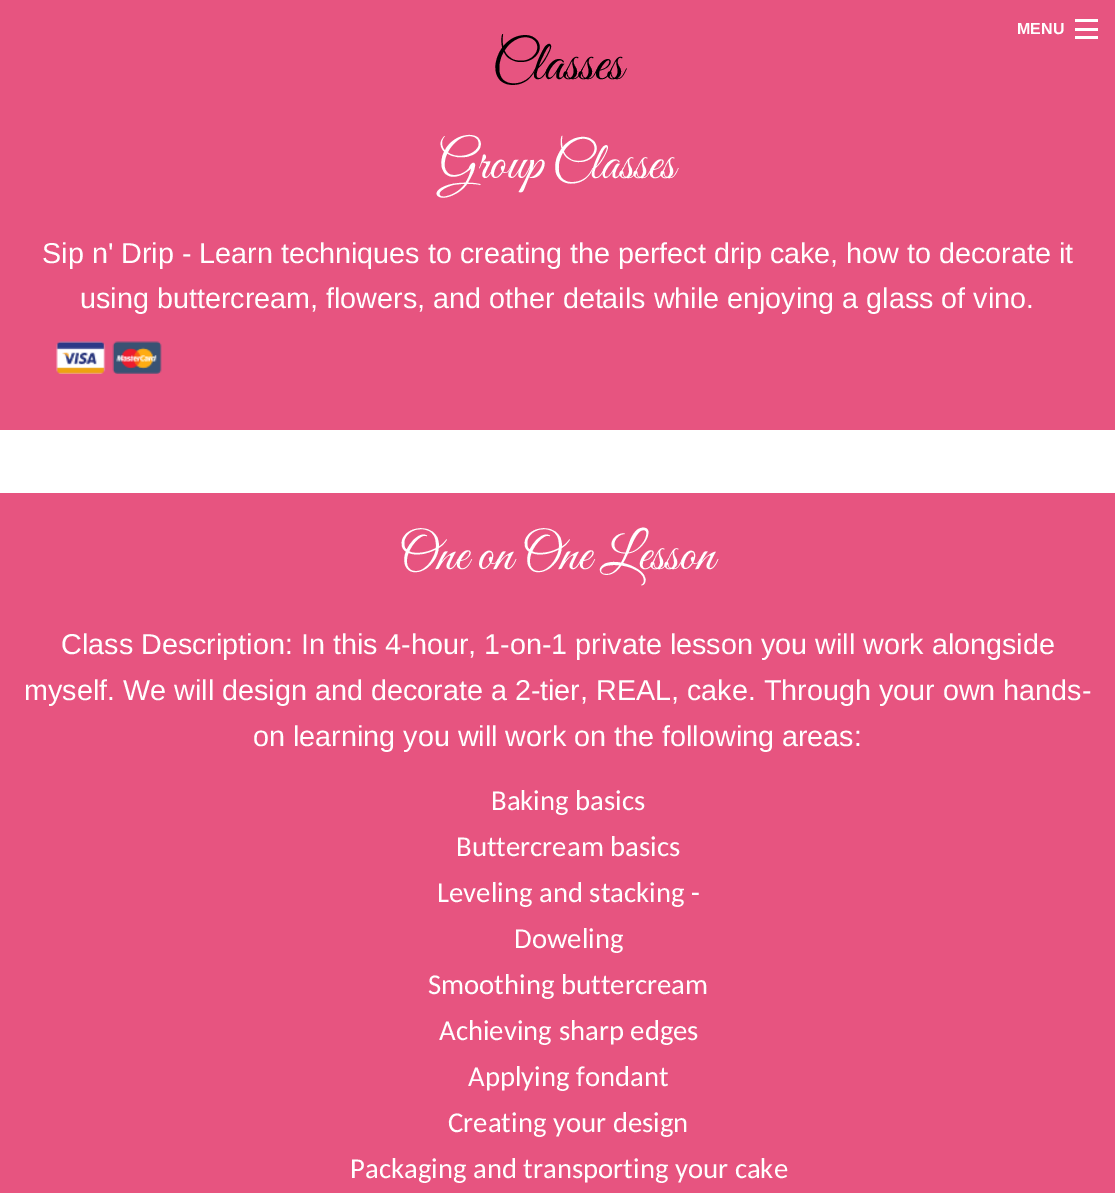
%!PS
<< /PageSize [1115 1193] >> setpagedevice
/rgb { 3 { 255 div 3 1 roll } repeat setrgbcolor } def
/font { [ exch dup neg 0 0 3 -1 roll 0 0 ] selectfont } def
/text { moveto show } def
/picture { 5 dict begin { /h /w /y /x /name } { exch def } forall
  gsave x y translate w h scale
  w h 8 [w 0 0 h 0 0] name (r) file false 3 colorimage grestore end } def
0 1193 translate 1 -1 scale
4 setmiterlimit
255 255 255 rgb
0 0 1115 1193 rectfill
231 84 128 rgb
0 0 1115 430 rectfill
255 255 255 rgb
1075 36 23 3 rectfill
1075 28 23 3 rectfill
1075 19 23 3 rectfill
(img_01.rgb) 56 341 50 33 picture
(img_02.rgb) 112 341 50 33 picture
231 84 128 rgb
0 493 1115 700 rectfill
/LiberationSans-Bold 16 font
255 255 255 rgb
(MENU) 1017 34 text
/GreatVibes-Regular 56 font
0 0 0 rgb
(Classes) 492 79 text
/GreatVibes-Regular 52.5 font
255 255 255 rgb
(Group Classes) 439 178 text
/LiberationSans-Regular 28.75 font
(Sip n' Drip - Learn techniques to creating the perfect drip cake, how to decorate it) 42 263 text
(using buttercream, flowers, and other details while enjoying a glass of vino.) 80 308 text
/GreatVibes-Regular 52.5 font
(One on One Lesson) 399 569 text
/LiberationSans-Regular 28.75 font
(Class Description: In this 4-hour, 1-on-1 private lesson you will work alongside) 61 654 text
(myself. We will design and decorate a 2-tier, REAL, cake. Through your own hands-) 24 700 text
(on learning you will work on the following areas:) 253 746 text
/Carlito-Regular 28.75 font
(Baking basics) 491 810 text
(Buttercream basics) 456 856 text
(Leveling and stacking -) 437 902 text
(Doweling) 514 948 text
(Smoothing buttercream) 428 994 text
(Achieving sharp edges) 439 1040 text
(Applying fondant) 468 1086 text
(Creating your design) 448 1132 text
(Packaging and transporting your cake) 350 1178 text
showpage
